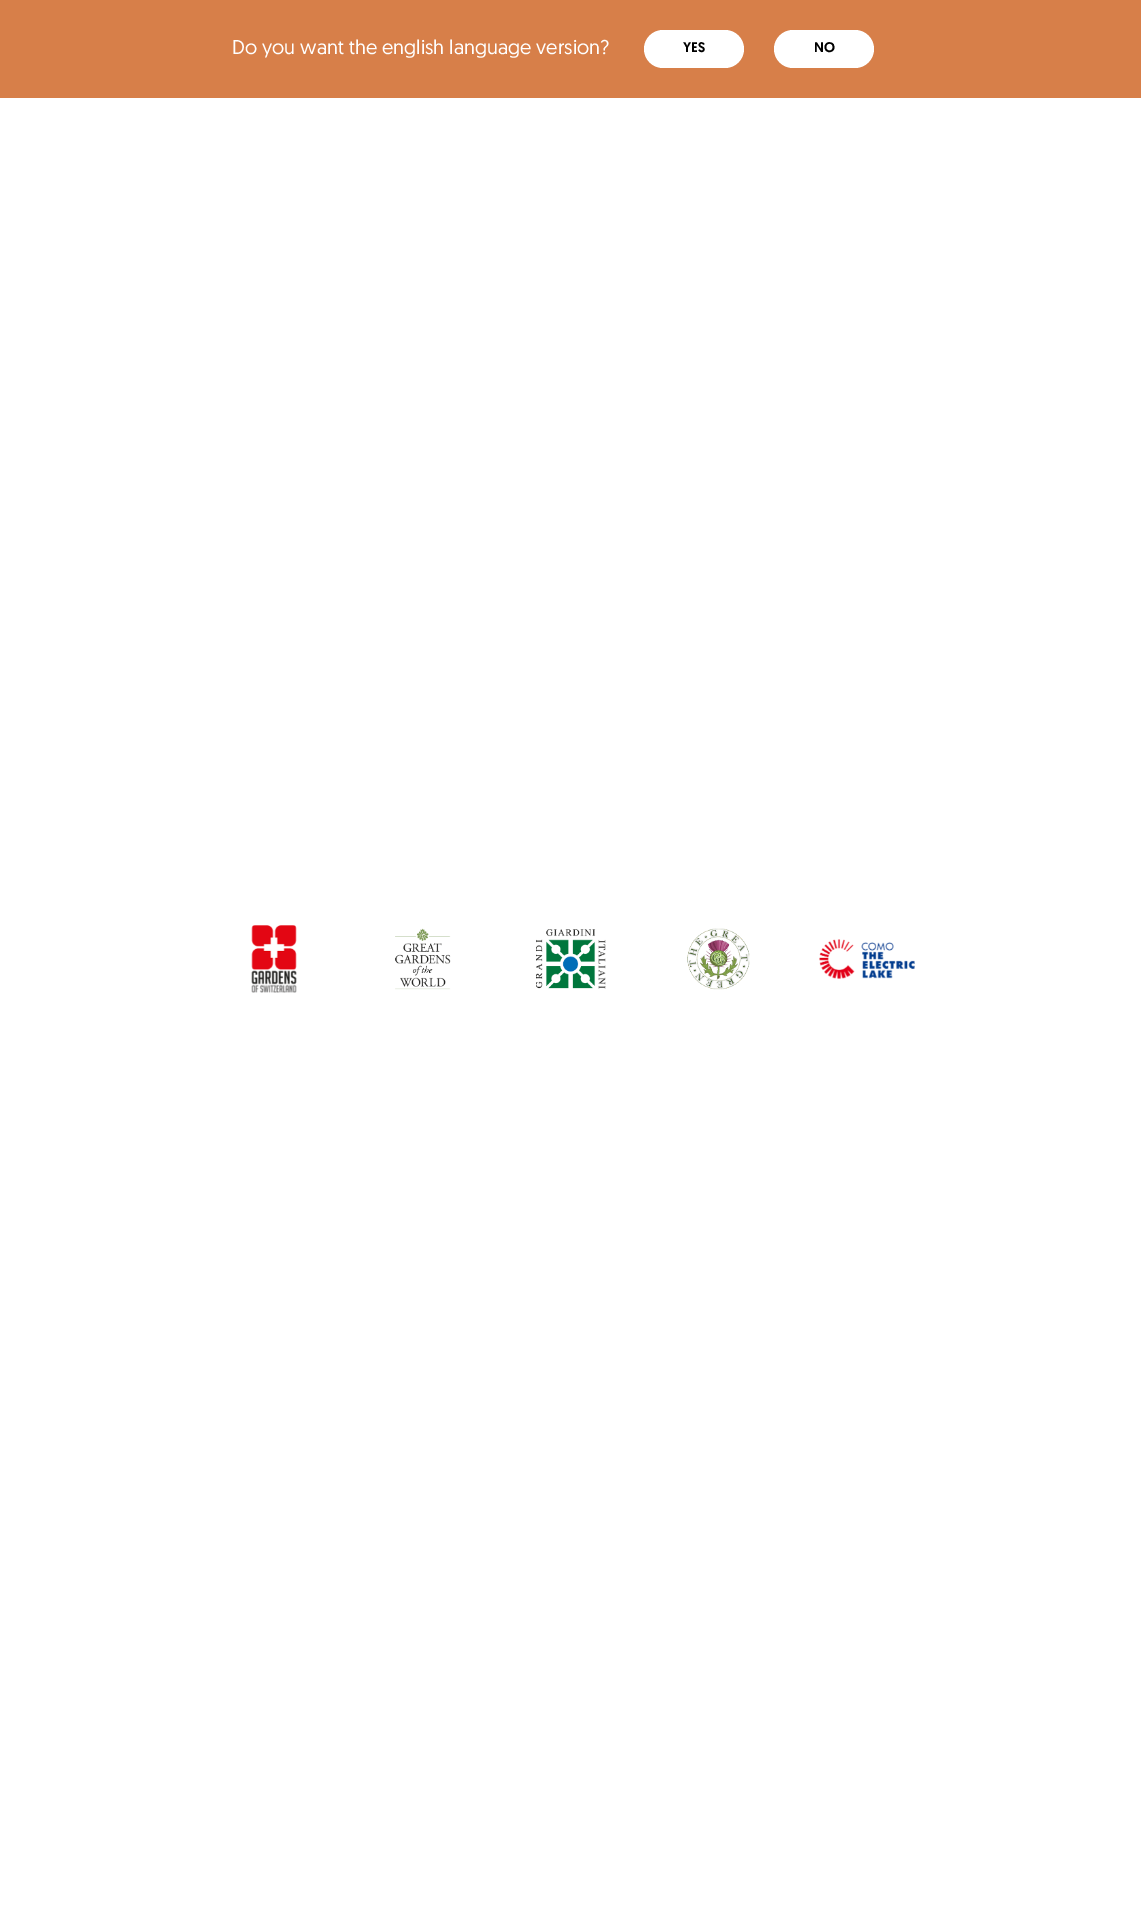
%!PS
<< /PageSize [1141 1918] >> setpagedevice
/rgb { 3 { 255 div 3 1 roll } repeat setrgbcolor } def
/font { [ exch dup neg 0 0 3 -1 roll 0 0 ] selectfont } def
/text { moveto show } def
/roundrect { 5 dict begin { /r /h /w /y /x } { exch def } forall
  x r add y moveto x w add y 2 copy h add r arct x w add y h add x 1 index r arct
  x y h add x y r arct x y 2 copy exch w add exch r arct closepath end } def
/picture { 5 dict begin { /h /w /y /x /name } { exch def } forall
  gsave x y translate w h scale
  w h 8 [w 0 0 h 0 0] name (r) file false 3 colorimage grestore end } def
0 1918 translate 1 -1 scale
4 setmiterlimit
255 255 255 rgb
0 0 1141 1918 rectfill
215 127 73 rgb
0 0 1141 98 rectfill
255 255 255 rgb
644 30 100 38 19 roundrect fill
774 30 100 38 19 roundrect fill
(img_01.rgb) 251 925 46 68 picture
(img_02.rgb) 395 928 56 62 picture
(img_03.rgb) 536 929 70 60 picture
(img_04.rgb) 687 928 63 62 picture
(img_05.rgb) 819 939 96 40 picture
/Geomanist-Regular 20 font
(Do you want the english language version?) 232 54 text
/Geomanist-Medium 14 font
0 0 0 rgb
(YES) 683 52 text
(NO) 814 52 text
showpage
